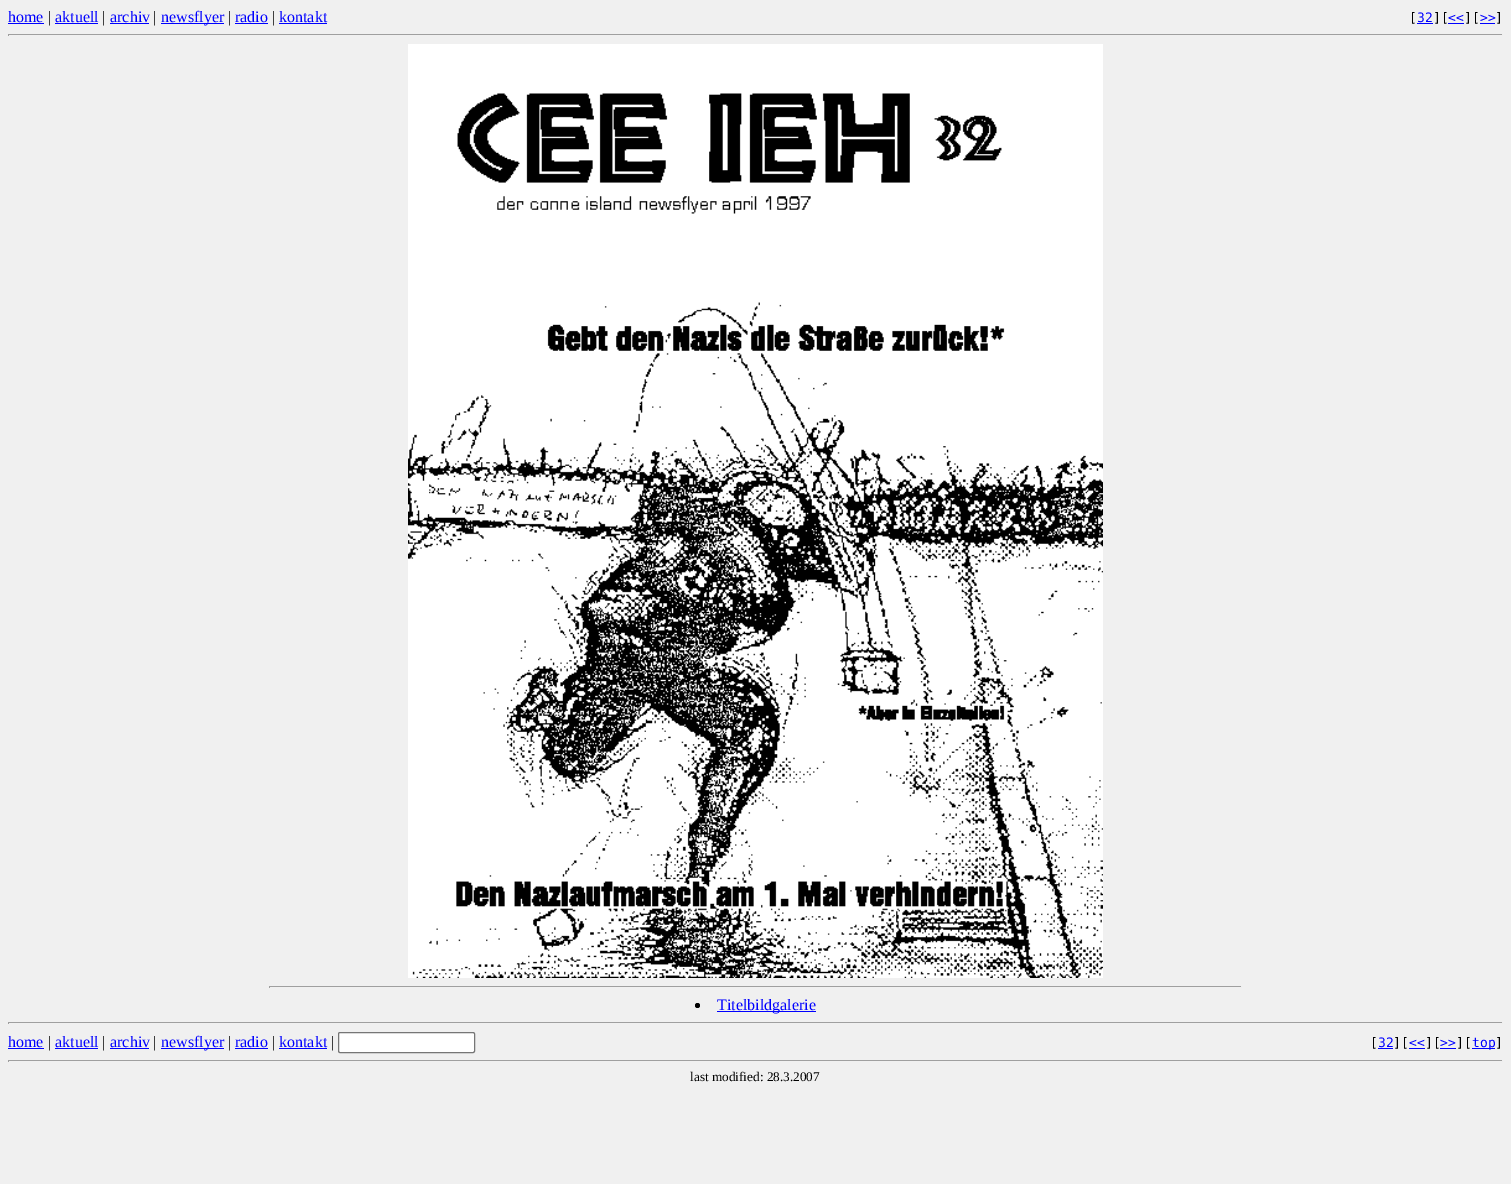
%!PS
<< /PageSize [1511 1184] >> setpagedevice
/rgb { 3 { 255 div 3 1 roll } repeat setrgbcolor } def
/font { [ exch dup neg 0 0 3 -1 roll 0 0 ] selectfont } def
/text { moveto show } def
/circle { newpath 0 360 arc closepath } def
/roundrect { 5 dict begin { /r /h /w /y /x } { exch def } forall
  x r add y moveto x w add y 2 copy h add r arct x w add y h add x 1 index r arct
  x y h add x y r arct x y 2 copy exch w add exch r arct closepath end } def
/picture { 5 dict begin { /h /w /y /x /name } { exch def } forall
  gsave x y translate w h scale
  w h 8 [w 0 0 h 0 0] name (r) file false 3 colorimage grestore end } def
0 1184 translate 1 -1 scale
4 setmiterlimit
240 240 240 rgb
0 0 1511 1184 rectfill
0 0 255 rgb
8 23 36 1 rectfill
55 23 43 1 rectfill
110 23 39 1 rectfill
161 23 63 1 rectfill
235 23 33 1 rectfill
279 23 48 1 rectfill
1417 23 16 1 rectfill
1448 23 16 1 rectfill
1480 23 15 1 rectfill
159 159 159 rgb
8 34 1495 1 rectfill
238 238 238 rgb
1502 34 1 2 rectfill
159 159 159 rgb
8 34 1 2 rectfill
(img_01.rgb) 408 44 695 934 picture
269 986 973 1 rectfill
238 238 238 rgb
1241 986 1 2 rectfill
159 159 159 rgb
269 986 1 2 rectfill
0 0 0 rgb
697.5 1005.5 2.5 circle fill
0 0 255 rgb
717 1011 99 1 rectfill
159 159 159 rgb
8 1022 1495 1 rectfill
238 238 238 rgb
1502 1022 1 2 rectfill
159 159 159 rgb
8 1022 1 2 rectfill
0 0 255 rgb
8 1048 36 1 rectfill
55 1048 43 1 rectfill
110 1048 39 1 rectfill
161 1048 63 1 rectfill
235 1048 33 1 rectfill
279 1048 48 1 rectfill
255 255 255 rgb
338.5 1032.5 136 20 1.5 roundrect gsave fill grestore
118 118 118 rgb
stroke
0 0 255 rgb
1378 1048 15 1 rectfill
1409 1048 16 1 rectfill
1440 1048 16 1 rectfill
1472 1048 23 1 rectfill
159 159 159 rgb
8 1060 1495 1 rectfill
238 238 238 rgb
1502 1060 1 2 rectfill
159 159 159 rgb
8 1060 1 2 rectfill
/LiberationSerif-Regular 16 font
0 0 255 rgb
(home) 8 22 text
0 0 0 rgb
(|) 48 22 text
0 0 255 rgb
(aktuell) 55 22 text
0 0 0 rgb
(|) 102 22 text
0 0 255 rgb
(archiv) 110 22 text
0 0 0 rgb
(|) 153 22 text
0 0 255 rgb
(newsflyer) 161 22 text
0 0 0 rgb
(|) 228 22 text
0 0 255 rgb
(radio) 235 22 text
0 0 0 rgb
(|) 272 22 text
0 0 255 rgb
(kontakt) 279 22 text
/DejaVuSansMono-Regular 13 font
0 0 0 rgb
([) 1409 22 text
0 0 255 rgb
(32) 1417 22 text
0 0 0 rgb
(][) 1433 22 text
0 0 255 rgb
(<<) 1448 22 text
0 0 0 rgb
(][) 1464 22 text
0 0 255 rgb
(>>) 1480 22 text
0 0 0 rgb
(]) 1495 22 text
/LiberationSerif-Regular 16 font
0 0 255 rgb
(Titelbildgalerie) 717 1010 text
(home) 8 1047 text
0 0 0 rgb
(|) 48 1047 text
0 0 255 rgb
(aktuell) 55 1047 text
0 0 0 rgb
(|) 102 1047 text
0 0 255 rgb
(archiv) 110 1047 text
0 0 0 rgb
(|) 153 1047 text
0 0 255 rgb
(newsflyer) 161 1047 text
0 0 0 rgb
(|) 228 1047 text
0 0 255 rgb
(radio) 235 1047 text
0 0 0 rgb
(|) 272 1047 text
0 0 255 rgb
(kontakt) 279 1047 text
0 0 0 rgb
(|) 331 1047 text
/DejaVuSansMono-Regular 13 font
([) 1370 1047 text
0 0 255 rgb
(32) 1378 1047 text
0 0 0 rgb
(][) 1393 1047 text
0 0 255 rgb
(<<) 1409 1047 text
0 0 0 rgb
(][) 1425 1047 text
0 0 255 rgb
(>>) 1440 1047 text
0 0 0 rgb
(][) 1456 1047 text
0 0 255 rgb
(top) 1472 1047 text
0 0 0 rgb
(]) 1495 1047 text
/LiberationSerif-Regular 13.25 font
(last modified: 28.3.2007) 690 1081 text
showpage
